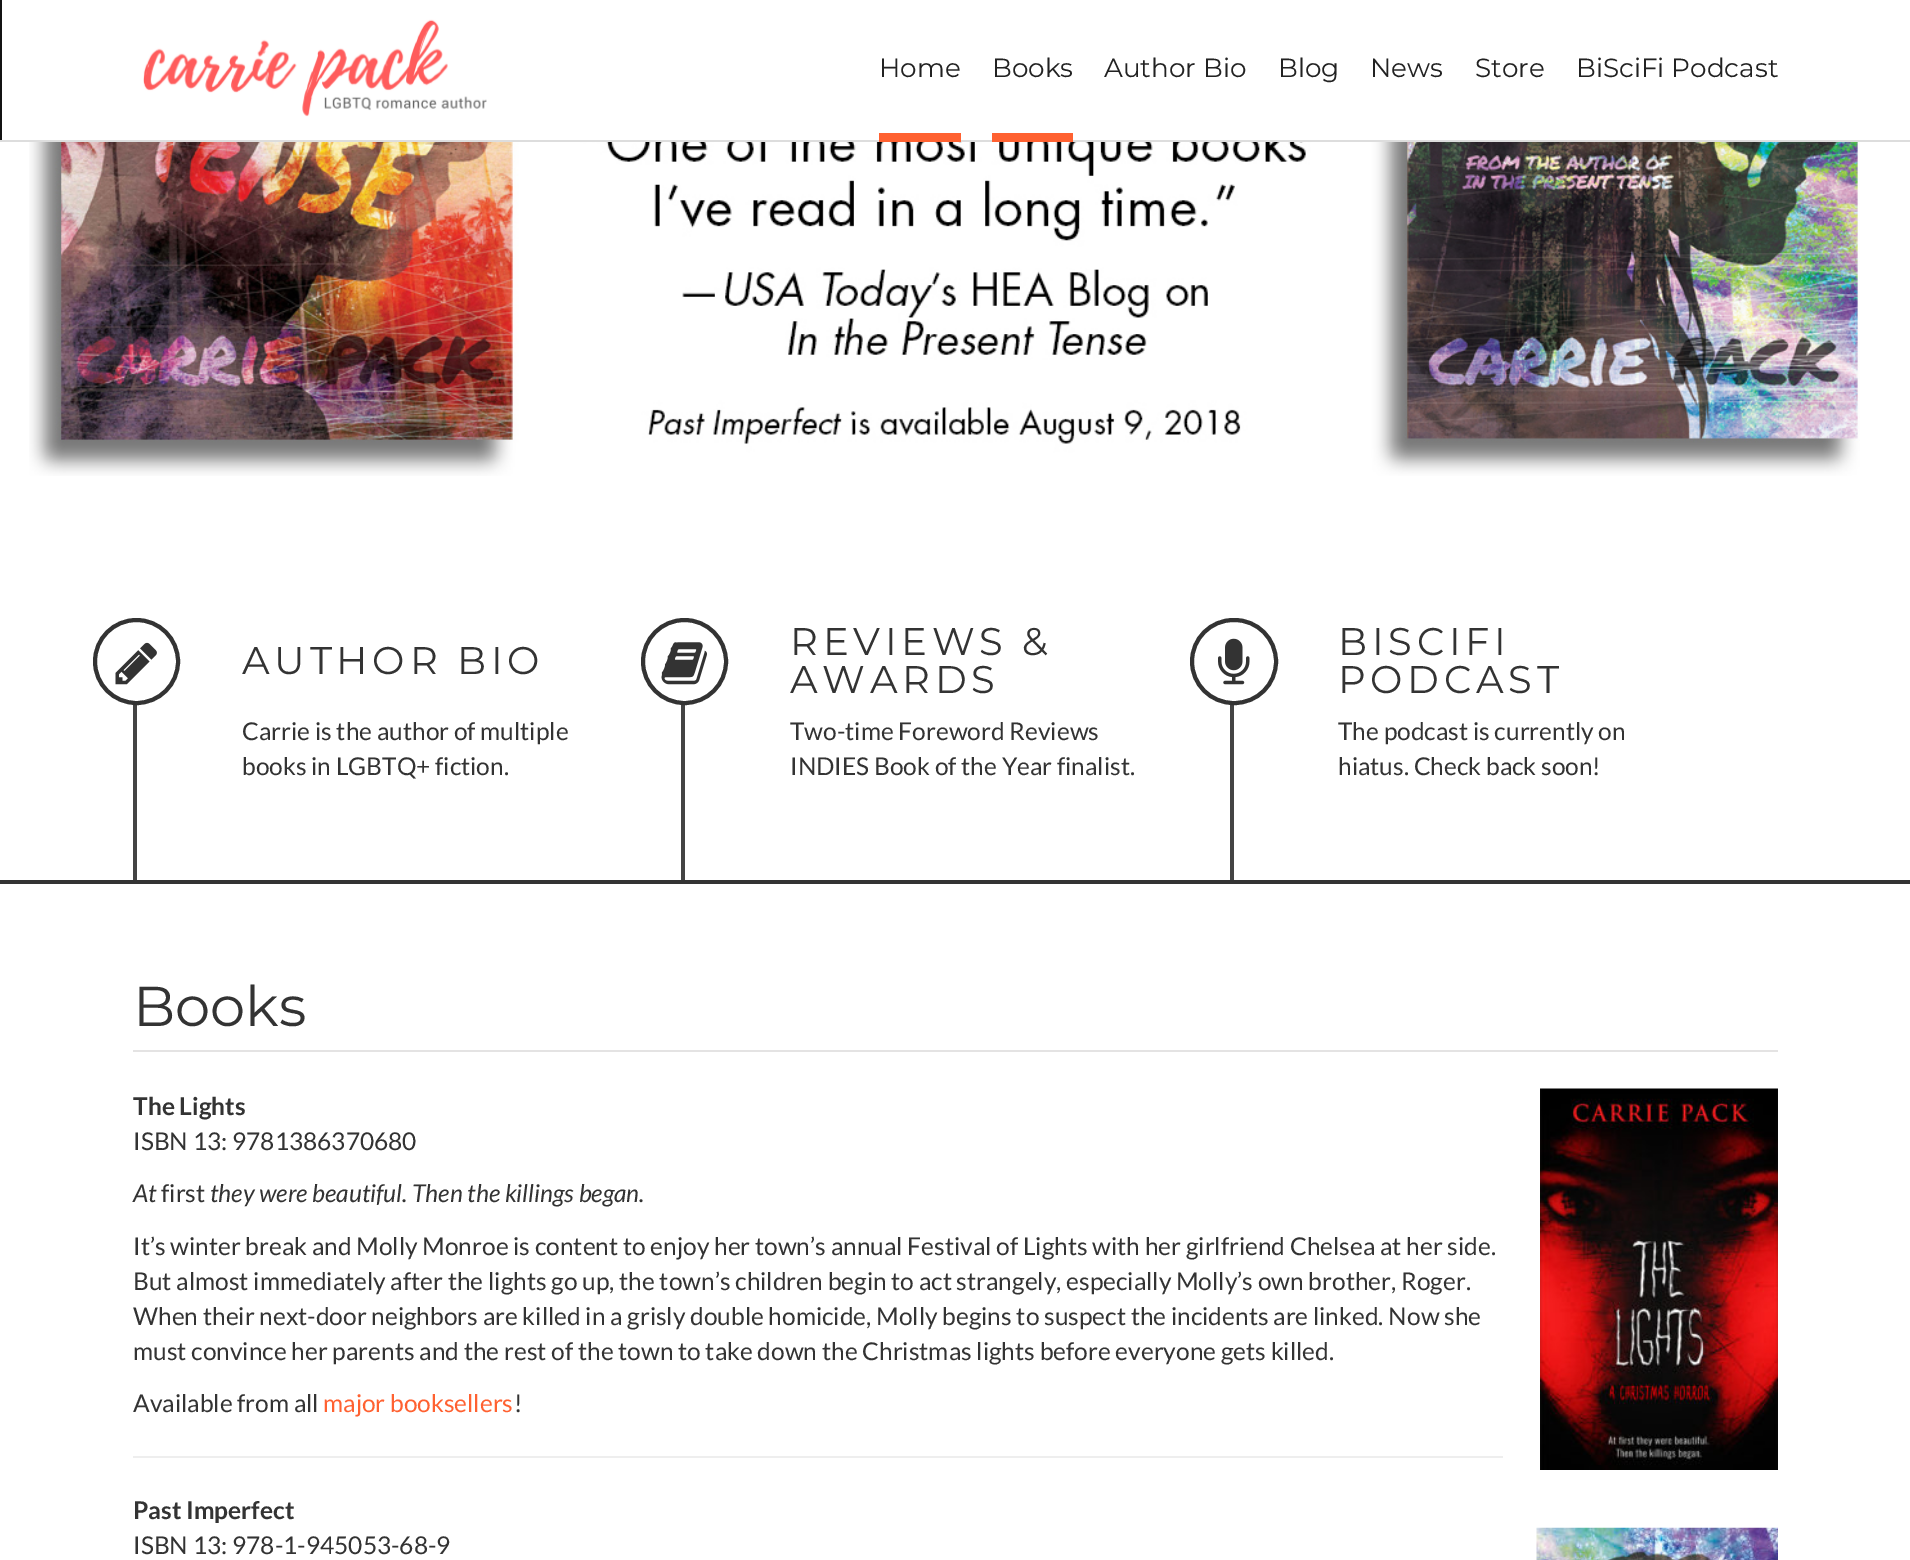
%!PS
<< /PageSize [1910 1560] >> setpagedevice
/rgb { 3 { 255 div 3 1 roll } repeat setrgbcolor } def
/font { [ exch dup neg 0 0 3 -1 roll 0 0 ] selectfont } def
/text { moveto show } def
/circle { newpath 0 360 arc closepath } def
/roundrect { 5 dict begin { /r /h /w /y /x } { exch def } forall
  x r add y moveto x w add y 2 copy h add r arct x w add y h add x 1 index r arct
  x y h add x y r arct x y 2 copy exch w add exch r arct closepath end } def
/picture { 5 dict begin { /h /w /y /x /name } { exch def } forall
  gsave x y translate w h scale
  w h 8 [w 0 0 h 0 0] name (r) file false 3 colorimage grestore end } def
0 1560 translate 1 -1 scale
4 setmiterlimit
255 255 255 rgb
0 0 1910 1560 rectfill
221 221 221 rgb
0 140 1910 2 rectfill
19 19 19 rgb
0 0 2 140 rectfill
(img_01.rgb) 143 19 344 98 picture
255 97 49 rgb
879 133 82 9 rectfill
992 133 81 9 rectfill
(img_02.rgb) 29 142 1831 334 picture
51 51 51 rgb
0 880 1910 4 rectfill
68 68 68 rgb
133 618 4 262 rectfill
255 255 255 rgb
136.5 661.5 41.5 circle gsave fill grestore
51 51 51 rgb
4 setlinewidth
stroke
(img_03.rgb) 115 642 42 43 picture
68 68 68 rgb
681 618 4 262 rectfill
255 255 255 rgb
684.5 661.5 41.5 circle gsave fill grestore
51 51 51 rgb
stroke
(img_04.rgb) 661 642 46 43 picture
68 68 68 rgb
1230 618 4 262 rectfill
255 255 255 rgb
1192 620 84 83 41.5 roundrect gsave fill grestore
51 51 51 rgb
stroke
(img_05.rgb) 1218 638 32 47 picture
228 227 227 rgb
133 1050 1645 2 rectfill
(img_06.rgb) 1540 1088 238 382 picture
238 238 238 rgb
133 1456 1370 2 rectfill
(img_07.rgb) 1536 1527 242 33 picture
/Montserrat-Regular 26.25 font
34 34 34 rgb
(Home) 879 77 text
(Books) 992 77 text
(Author Bio) 1104 77 text
(Blog) 1278 77 text
(News) 1370 77 text
(Store) 1475 77 text
(BiSciFi Podcast) 1576 77 text
/Montserrat-Regular 38.5 font
51 51 51 rgb
242 674 moveto 4.75 0 (AUTHOR BIO) ashow
/Lato-Regular 24.5 font
(Carrie is the author of multiple) 242 740 text
(books in LGBTQ+ fiction.) 242 775 text
/Montserrat-Regular 38.5 font
790 655 moveto 4.75 0 (REVIEWS &) ashow
790 693 moveto 4.75 0 (AWARDS) ashow
/Lato-Regular 24.5 font
(Two-time Foreword Reviews) 790 740 text
(INDIES Book of the Year finalist.) 790 775 text
/Montserrat-Regular 38.5 font
1338 655 moveto 4.75 0 (BISCIFI) ashow
1338 693 moveto 4.75 0 (PODCAST) ashow
/Lato-Regular 24.5 font
(The podcast is currently on) 1338 740 text
(hiatus. Check back soon!) 1338 775 text
/Montserrat-Regular 56 font
(Books) 133 1026 text
/Lato-Bold 24.5 font
(The Lights) 133 1115 text
/Lato-Regular 24.5 font
(ISBN 13: 9781386370680) 133 1150 text
/Lato-Italic 24.5 font
(At) 133 1202 text
/Lato-Regular 24.5 font
(first) 161 1202 text
/Lato-Italic 24.5 font
(they were beautiful. Then the killings began.) 210 1202 text
/Lato-Regular 24.5 font
(It’s winter break and Molly Monroe is content to enjoy her town’s annual Festival of Lights with her girlfriend Chelsea at her side.) 133 1255 text
(But almost immediately after the lights go up, the town’s children begin to act strangely, especially Molly’s own brother, Roger.) 133 1290 text
(When their next-door neighbors are killed in a grisly double homicide, Molly begins to suspect the incidents are linked. Now she) 133 1325 text
(must convince her parents and the rest of the town to take down the Christmas lights before everyone gets killed.) 133 1360 text
(Available from all) 133 1412 text
255 97 49 rgb
(major booksellers) 323 1412 text
51 51 51 rgb
(!) 514 1412 text
/Lato-Bold 24.5 font
(Past Imperfect) 133 1519 text
/Lato-Regular 24.5 font
(ISBN 13: 978-1-945053-68-9) 133 1554 text
showpage
